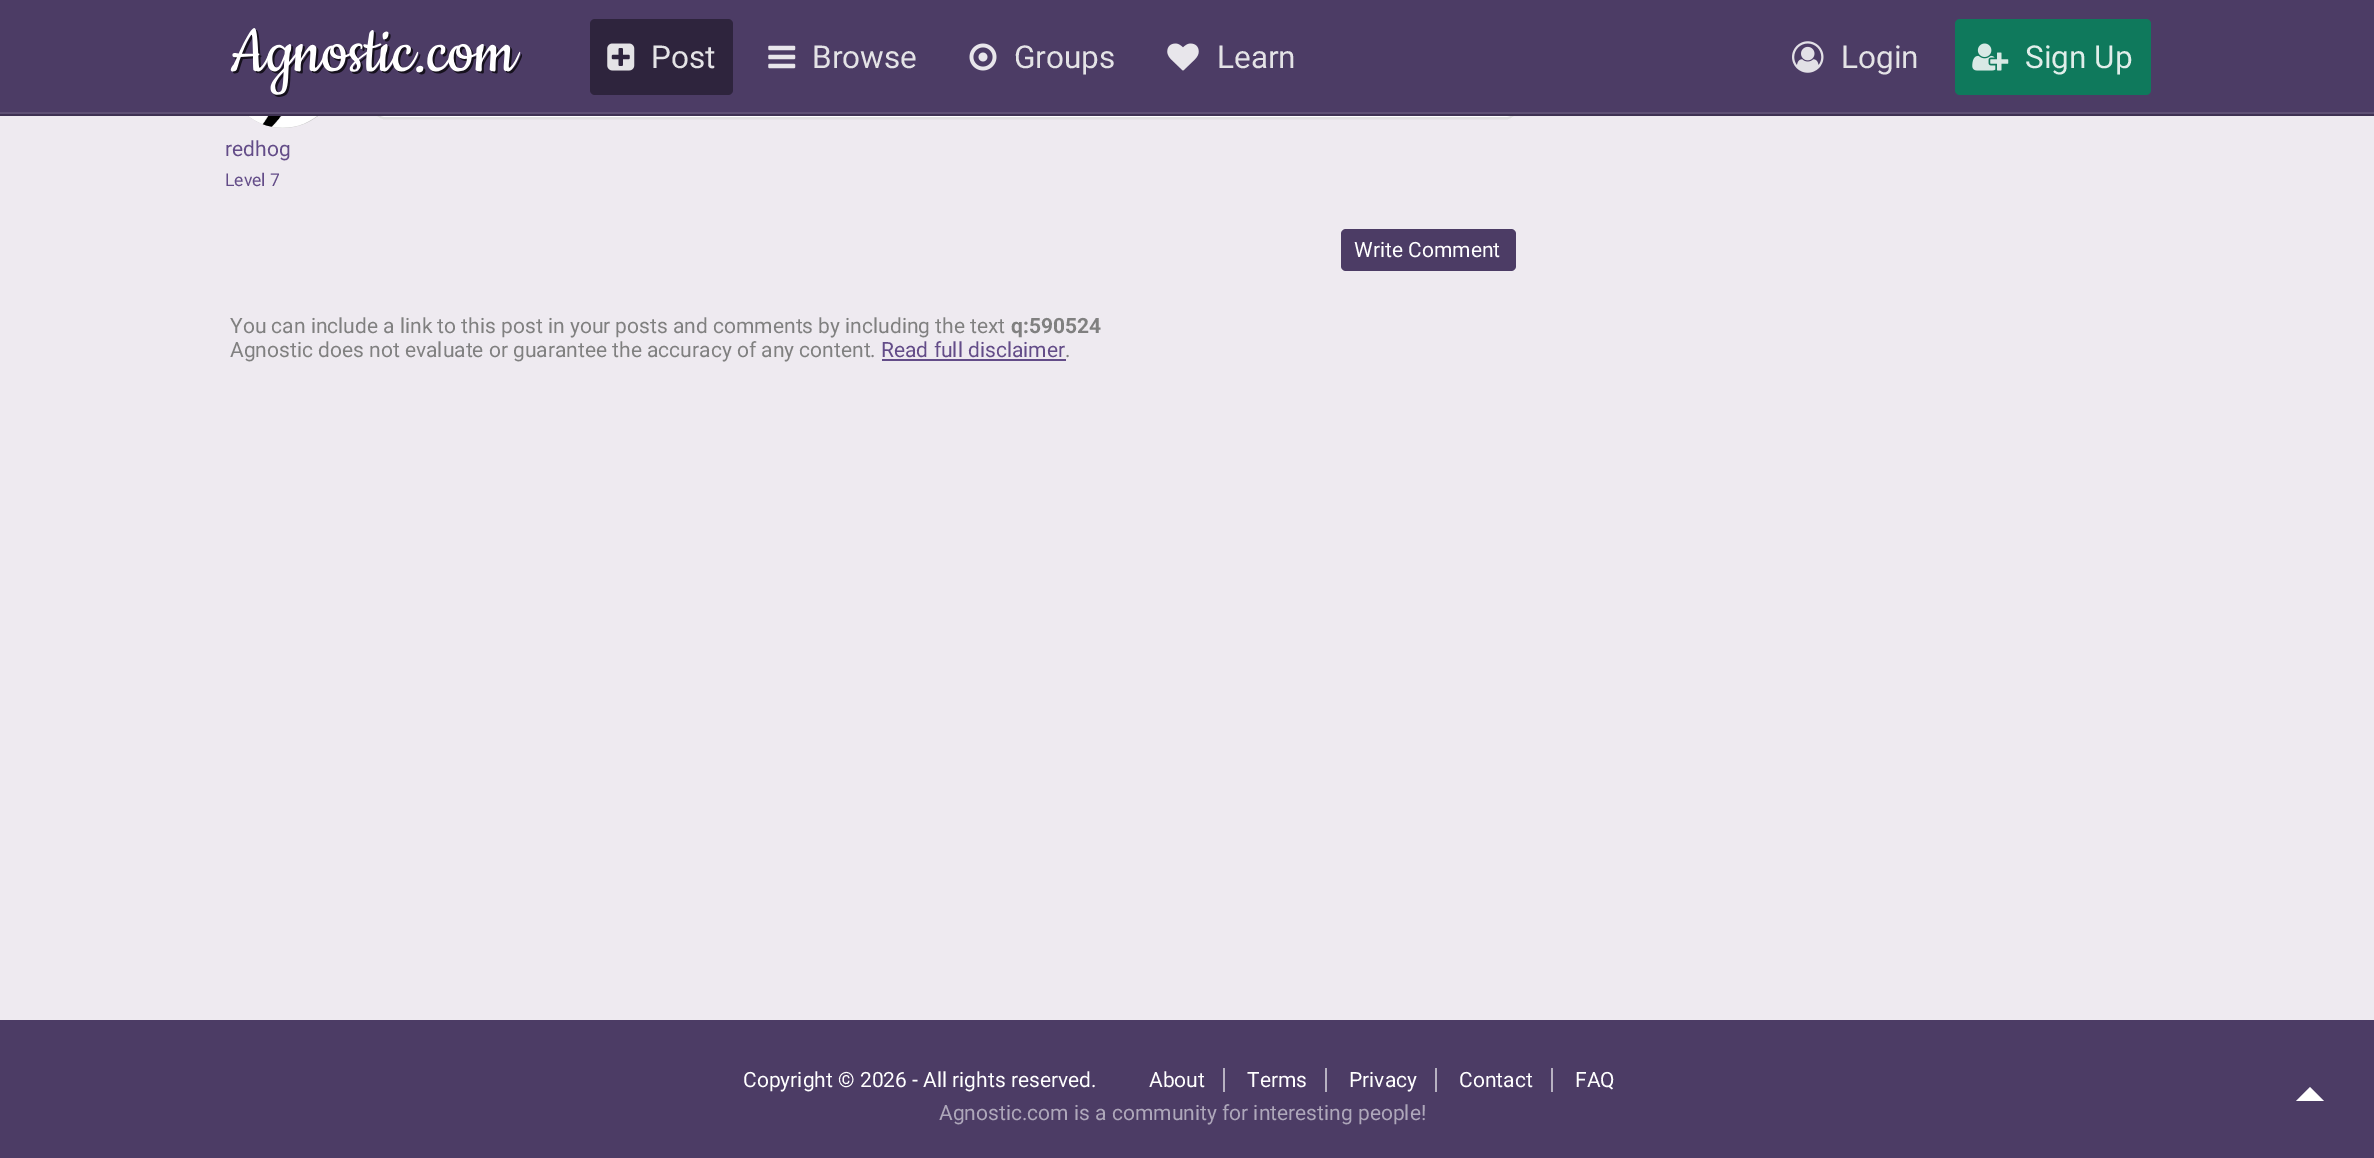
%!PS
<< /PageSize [2374 1158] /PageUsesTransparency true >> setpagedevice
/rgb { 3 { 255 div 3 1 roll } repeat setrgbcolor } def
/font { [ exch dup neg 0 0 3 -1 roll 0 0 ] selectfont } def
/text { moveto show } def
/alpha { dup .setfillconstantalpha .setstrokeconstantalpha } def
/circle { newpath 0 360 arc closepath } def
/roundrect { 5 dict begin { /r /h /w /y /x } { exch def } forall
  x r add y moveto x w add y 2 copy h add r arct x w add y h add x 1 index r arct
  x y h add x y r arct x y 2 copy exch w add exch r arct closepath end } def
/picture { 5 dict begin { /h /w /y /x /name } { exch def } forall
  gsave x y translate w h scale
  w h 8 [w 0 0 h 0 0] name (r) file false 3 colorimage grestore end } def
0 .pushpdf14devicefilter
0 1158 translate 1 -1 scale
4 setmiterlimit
238 234 240 rgb
0 0 2374 1158 rectfill
255 255 255 rgb
375 14 1141 105 9 roundrect fill
0.12 alpha
0 0 0 rgb
2 setlinewidth
376 15 1139 103 8 roundrect stroke
1 alpha
191 191 191 rgb
283 71 57 circle fill
76 60 101 rgb
0 0 2374 112 rectfill
94 80 116 rgb
0 112 2374 2 rectfill
62 49 82 rgb
0 114 2374 2 rectfill
(img_01.rgb) 230 28 292 69 picture
46 36 61 rgb
590 19 143 76 5 roundrect fill
(img_02.rgb) 607 43 28 28 picture
(img_03.rgb) 768 45 28 24 picture
(img_04.rgb) 969 43 28 28 picture
(img_05.rgb) 1167 43 32 28 picture
(img_06.rgb) 1792 41 32 32 picture
15 121 92 rgb
1955 19 196 76 5 roundrect fill
(img_07.rgb) 1972 43 37 28 picture
(img_08.rgb) 248 116 69 12 picture
76 60 101 rgb
1341 229 175 42 5 roundrect fill
99 76 136 rgb
882 359 184 2 rectfill
76 60 101 rgb
0 1020 2374 138 rectfill
183 177 193 rgb
1223 1068 2 24 rectfill
1325 1068 2 24 rectfill
1435 1068 2 24 rectfill
1551 1068 2 24 rectfill
255 255 255 rgb
2324 1101 moveto -28 0 rlineto 14 -14 rlineto closepath fill
/Roboto-Regular 31.5 font
228 227 230 rgb
(Post) 651 68 text
(Browse) 812 68 text
(Groups) 1014 68 text
(Learn) 1217 68 text
(Login) 1841 68 text
224 238 234 rgb
(Sign Up) 2025 68 text
/Roboto-Regular 21 font
99 76 136 rgb
(redhog) 225 156 text
/Roboto-Regular 17.5 font
(Level 7) 225 186 text
/Roboto-Regular 21 font
255 255 255 rgb
(Write Comment) 1354 257 text
128 128 128 rgb
(You can include a link to this post in your posts and comments by including the text) 230 333 text
/Roboto-Bold 21 font
(q:590524) 1011 333 text
/Roboto-Regular 21 font
(Agnostic does not evaluate or guarantee the accuracy of any content.) 230 357 text
99 76 136 rgb
(Read full disclaimer) 881 357 text
128 128 128 rgb
(.) 1065 357 text
255 255 255 rgb
(Copyright © 2026 - All rights reserved.) 743 1087 text
(About) 1149 1087 text
(Terms) 1247 1087 text
(Privacy) 1349 1087 text
(Contact) 1459 1087 text
(FAQ) 1575 1087 text
174 167 186 rgb
(Agnostic.com is a community for interesting people!) 939 1120 text
.poppdf14devicefilter showpage
